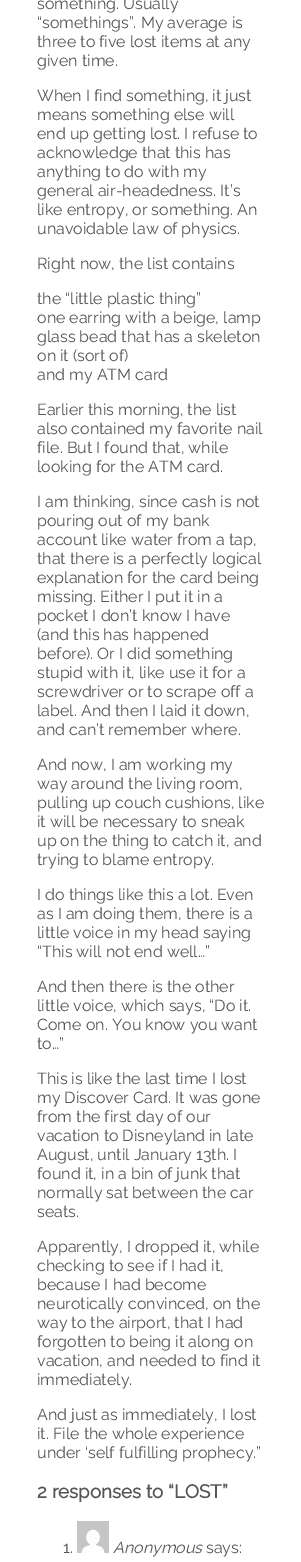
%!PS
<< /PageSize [301 1562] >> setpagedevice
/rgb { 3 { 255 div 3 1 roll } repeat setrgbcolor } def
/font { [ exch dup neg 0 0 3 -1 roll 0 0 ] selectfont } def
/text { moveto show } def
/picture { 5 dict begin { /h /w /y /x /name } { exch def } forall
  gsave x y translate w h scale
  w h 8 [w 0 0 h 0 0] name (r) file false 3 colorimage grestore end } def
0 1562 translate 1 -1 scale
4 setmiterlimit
255 255 255 rgb
0 0 301 1562 rectfill
(img_01.rgb) 77 1521 32 32 picture
/Raleway-Thin 16 font
85 85 85 rgb
(something. Usually) 37 9 text
(“somethings”. My average is) 37 28 text
(three to five lost items at any) 37 47 text
(given time.) 37 66 text
(When I find something, it just) 37 101 text
(means something else will) 37 120 text
(end up getting lost. I refuse to) 37 139 text
(acknowledge that this has) 37 158 text
(anything to do with my) 37 177 text
(general air-headedness. It’s) 37 196 text
(like entropy, or something. An) 37 215 text
(unavoidable law of physics.) 37 234 text
(Right now, the list contains) 37 269 text
(the “little plastic thing”) 37 304 text
(one earring with a beige, lamp) 37 323 text
(glass bead that has a skeleton) 37 342 text
(on it \(sort of\)) 37 361 text
(and my ATM card) 37 380 text
(Earlier this morning, the list) 37 415 text
(also contained my favorite nail) 37 434 text
(file. But I found that, while) 37 453 text
(looking for the ATM card.) 37 472 text
(I am thinking, since cash is not) 37 507 text
(pouring out of my bank) 37 526 text
(account like water from a tap,) 37 545 text
(that there is a perfectly logical) 37 564 text
(explanation for the card being) 37 583 text
(missing. Either I put it in a) 37 602 text
(pocket I don’t know I have) 37 621 text
(\(and this has happened) 37 640 text
(before\). Or I did something) 37 659 text
(stupid with it, like use it for a) 37 678 text
(screwdriver or to scrape off a) 37 697 text
(label. And then I laid it down,) 37 716 text
(and can’t remember where.) 37 735 text
(And now, I am working my) 37 770 text
(way around the living room,) 37 789 text
(pulling up couch cushions, like) 37 808 text
(it will be necessary to sneak) 37 827 text
(up on the thing to catch it, and) 37 846 text
(trying to blame entropy.) 37 865 text
(I do things like this a lot. Even) 37 900 text
(as I am doing them, there is a) 37 919 text
(little voice in my head saying) 37 938 text
(“This will not end well…”) 37 957 text
(And then there is the other) 37 992 text
(little voice, which says, “Do it.) 37 1011 text
(Come on. You know you want) 37 1030 text
(to…”) 37 1049 text
(This is like the last time I lost) 37 1084 text
(my Discover Card. It was gone) 37 1103 text
(from the first day of our) 37 1122 text
(vacation to Disneyland in late) 37 1141 text
(August, until January 13th. I) 37 1160 text
(found it, in a bin of junk that) 37 1179 text
(normally sat between the car) 37 1198 text
(seats.) 37 1217 text
(Apparently, I dropped it, while) 37 1252 text
(checking to see if I had it,) 37 1271 text
(because I had become) 37 1290 text
(neurotically convinced, on the) 37 1309 text
(way to the airport, that I had) 37 1328 text
(forgotten to being it along on) 37 1347 text
(vacation, and needed to find it) 37 1366 text
(immediately.) 37 1385 text
(And just as immediately, I lost) 37 1420 text
(it. File the whole experience) 37 1439 text
(under ‘self fulfilling prophecy.”) 37 1458 text
/Raleway-Bold 18.75 font
(2 responses to “LOST”) 37 1498 text
/Raleway-Thin 16 font
(1.) 63 1553 text
/Raleway-ThinItalic 16 font
(Anonymous) 113 1553 text
/Raleway-Thin 16 font
(says:) 206 1553 text
showpage
